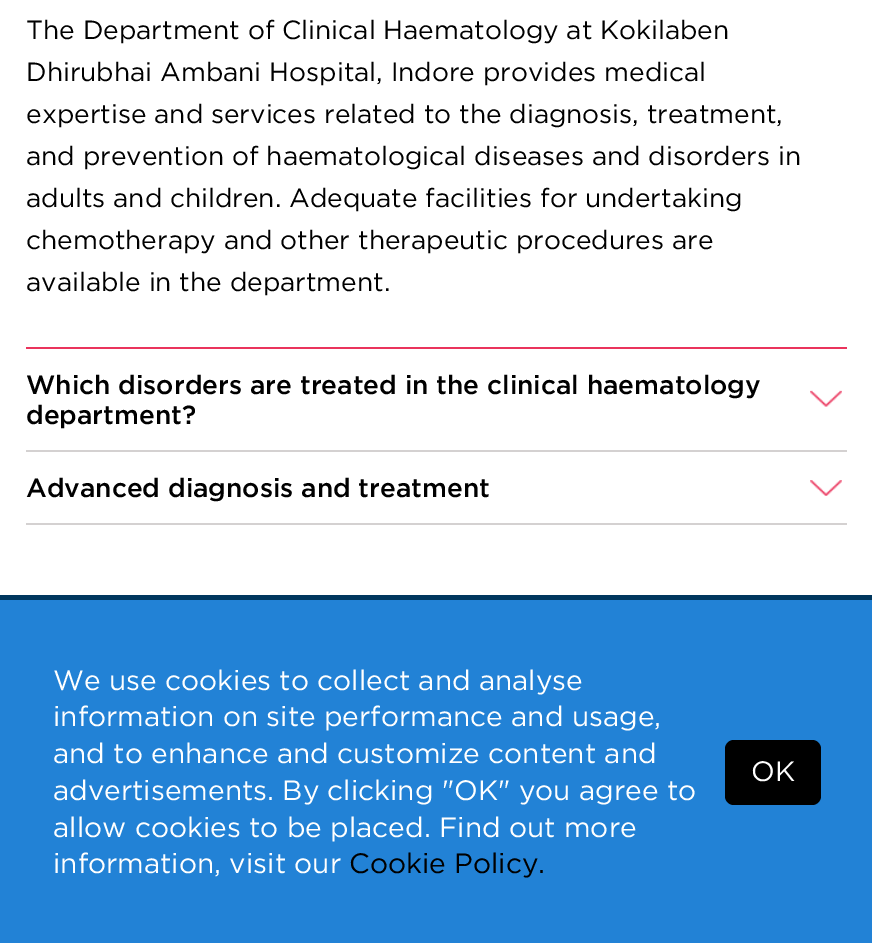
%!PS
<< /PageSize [872 943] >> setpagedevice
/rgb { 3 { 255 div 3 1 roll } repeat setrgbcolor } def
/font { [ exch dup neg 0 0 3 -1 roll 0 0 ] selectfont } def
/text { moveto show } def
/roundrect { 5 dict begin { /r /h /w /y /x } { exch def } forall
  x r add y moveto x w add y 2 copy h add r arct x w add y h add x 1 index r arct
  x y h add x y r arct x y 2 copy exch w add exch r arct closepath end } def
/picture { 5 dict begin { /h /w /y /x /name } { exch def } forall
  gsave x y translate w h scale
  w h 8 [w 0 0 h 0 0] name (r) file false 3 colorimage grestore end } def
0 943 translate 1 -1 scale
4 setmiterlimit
255 255 255 rgb
0 0 872 943 rectfill
234 52 92 rgb
26 347 821 2 rectfill
212 209 209 rgb
26 450 821 2 rectfill
(img_01.rgb) 810 390 32 17 picture
26 523 821 2 rectfill
(img_02.rgb) 810 480 32 16 picture
0 55 94 rgb
0 595 872 5 rectfill
34 130 214 rgb
0 600 872 343 rectfill
0 0 0 rgb
725 740 96 65 9 roundrect fill
/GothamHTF-Regular 26.25 font
(The Department of Clinical Haematology at Kokilaben) 26 39 text
(Dhirubhai Ambani Hospital, Indore provides medical) 26 81 text
(expertise and services related to the diagnosis, treatment,) 26 123 text
(and prevention of haematological diseases and disorders in) 26 165 text
(adults and children. Adequate facilities for undertaking) 26 207 text
(chemotherapy and other therapeutic procedures are) 26 249 text
(available in the department.) 26 291 text
/GothamHTF-Medium 26.25 font
(Which disorders are treated in the clinical haematology) 26 394 text
(department?) 26 424 text
(Advanced diagnosis and treatment) 26 497 text
/GothamHTF-Regular 28 font
255 255 255 rgb
(We use cookies to collect and analyse) 53 690 text
(information on site performance and usage,) 53 726 text
(and to enhance and customize content and) 53 763 text
(advertisements. By clicking "OK" you agree to) 53 800 text
(allow cookies to be placed. Find out more) 53 837 text
(information, visit our) 53 873 text
0 0 0 rgb
(Cookie Policy.) 349 873 text
255 255 255 rgb
(OK) 751 781 text
showpage
